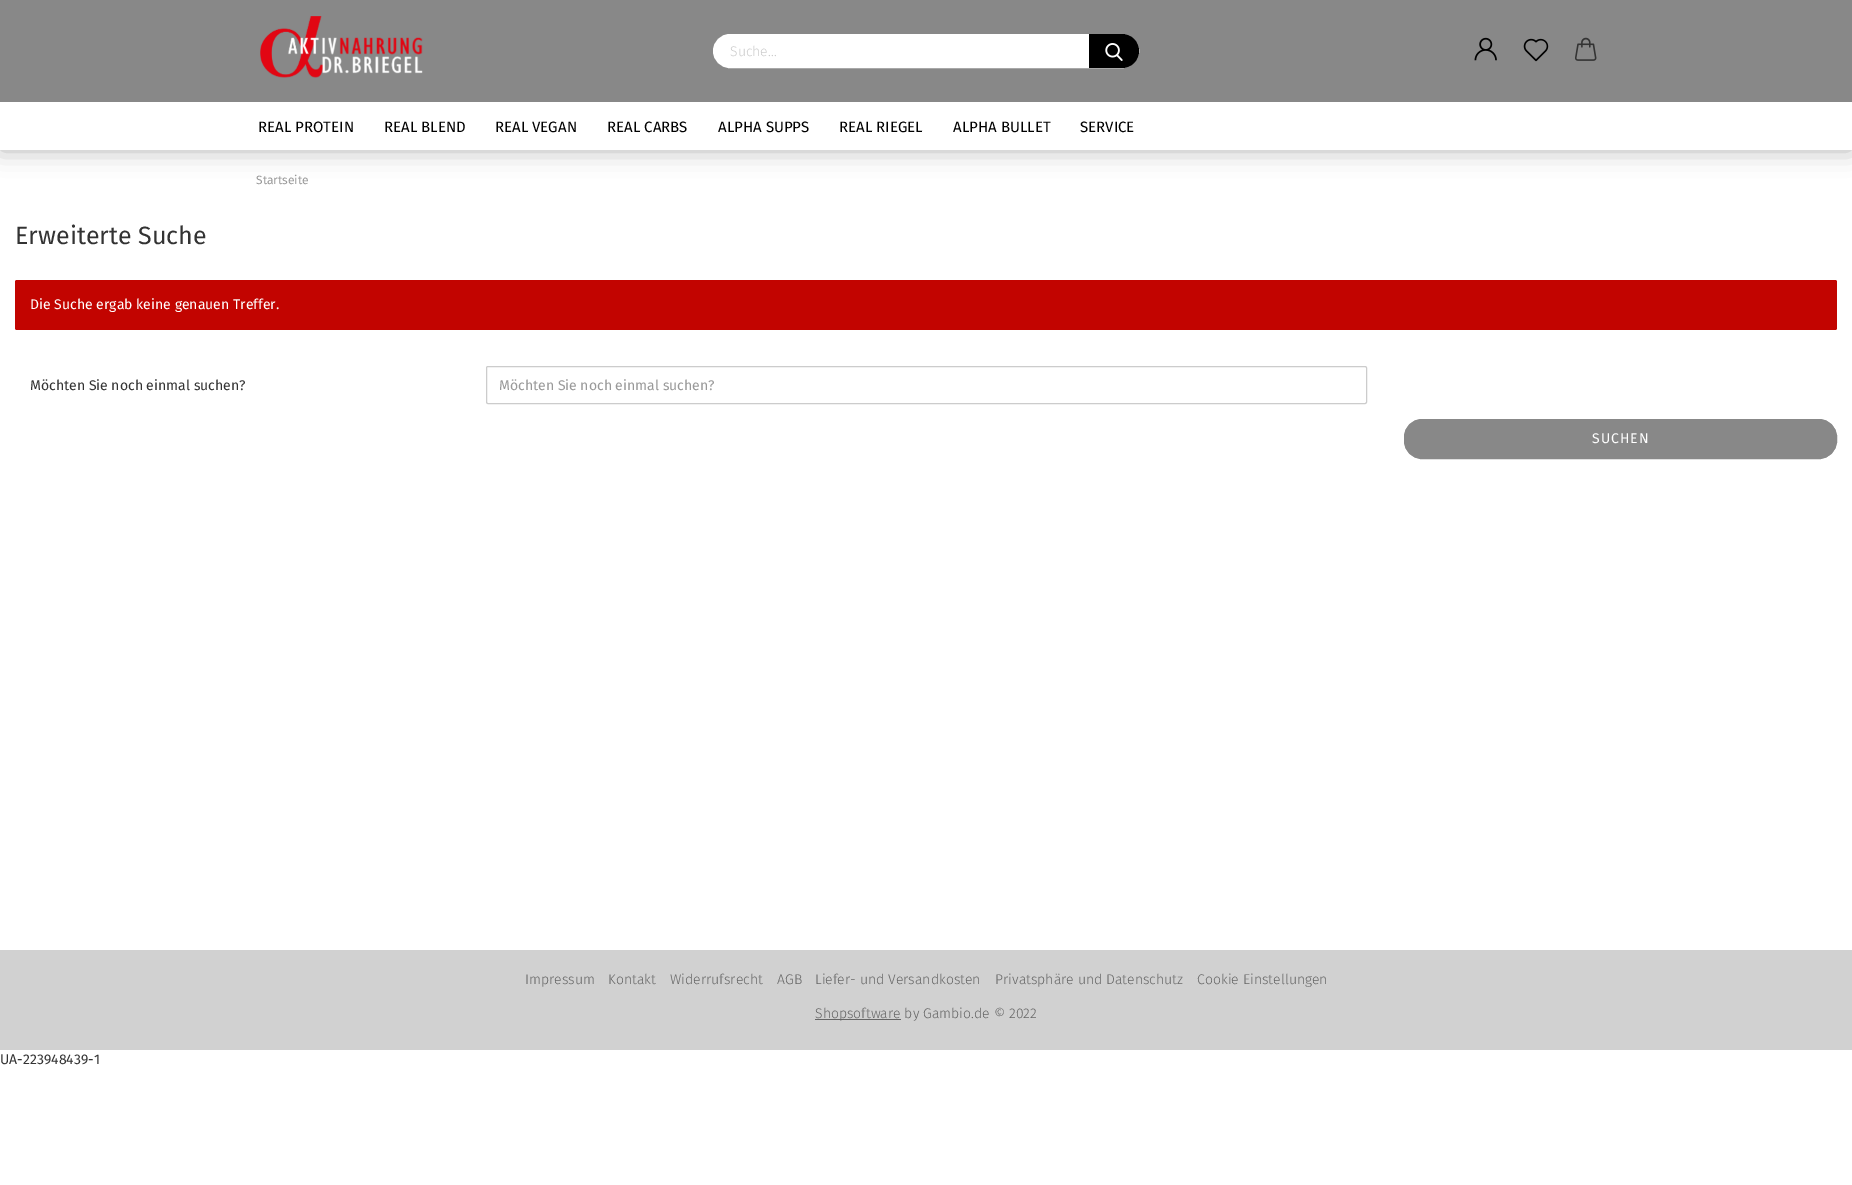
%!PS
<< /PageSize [1852 1185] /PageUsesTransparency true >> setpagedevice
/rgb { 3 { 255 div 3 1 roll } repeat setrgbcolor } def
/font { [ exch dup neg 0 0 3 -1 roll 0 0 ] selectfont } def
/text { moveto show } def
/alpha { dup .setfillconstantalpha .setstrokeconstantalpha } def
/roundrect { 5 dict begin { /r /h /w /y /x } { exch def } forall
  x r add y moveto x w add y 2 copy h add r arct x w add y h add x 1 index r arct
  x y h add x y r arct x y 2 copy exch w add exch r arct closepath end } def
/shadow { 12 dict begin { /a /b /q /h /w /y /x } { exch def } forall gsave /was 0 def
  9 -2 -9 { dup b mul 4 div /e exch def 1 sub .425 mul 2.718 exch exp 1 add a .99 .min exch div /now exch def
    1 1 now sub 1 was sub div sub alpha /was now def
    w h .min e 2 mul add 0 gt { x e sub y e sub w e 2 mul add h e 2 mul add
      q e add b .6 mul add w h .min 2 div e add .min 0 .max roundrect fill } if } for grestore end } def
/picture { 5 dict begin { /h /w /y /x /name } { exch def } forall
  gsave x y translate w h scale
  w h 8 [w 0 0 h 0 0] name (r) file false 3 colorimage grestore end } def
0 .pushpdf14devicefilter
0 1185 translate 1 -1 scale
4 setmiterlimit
255 255 255 rgb
0 0 1852 1185 rectfill
0 0 0 rgb
0 0 1852 150 0 12.5 0.3 shadow
136 136 136 rgb
0 0 1852 102 rectfill
(img_01.rgb) 260 16 163 62 picture
255 255 255 rgb
714 35 424 32 16 roundrect gsave fill grestore
2 setlinewidth
stroke
0 0 0 rgb
1089 34 moveto 33 0 rlineto 9.5 0 17 7.5 17 17 rcurveto 0 9.5 -7.5 17 -17 17 rcurveto -33 0 rlineto closepath fill
(img_02.rgb) 1105 43 18 18 picture
(img_03.rgb) 1474 37 23 24 picture
(img_04.rgb) 1523 38 26 24 picture
(img_05.rgb) 1575 37 22 24 picture
255 255 255 rgb
0 102 1852 48 rectfill
194 4 0 rgb
15 280 1822 50 2 roundrect fill
204 204 204 rgb
1 setlinewidth
486.5 366.5 880 37 1.5 roundrect stroke
136 136 136 rgb
1404.5 419.5 432 39 17.5 roundrect gsave fill grestore
stroke
209 209 209 rgb
0 950 1852 100 rectfill
102 102 102 rgb
815 1019 86 1 rectfill
/FiraSans-Light 14 font
204 204 204 rgb
(Suche...) 730 56 text
/FiraSans-Regular 15 font
0 0 0 rgb
(REAL PROTEIN) 258 132 text
(REAL BLEND) 384 132 text
(REAL VEGAN) 495 132 text
(REAL CARBS) 607 132 text
(ALPHA SUPPS) 718 132 text
(REAL RIEGEL) 839 132 text
(ALPHA BULLET) 953 132 text
(SERVICE) 1080 132 text
/FiraSans-Regular 12 font
153 153 153 rgb
(Startseite) 256 184 text
/FiraSans-Regular 25 font
51 51 51 rgb
(Erweiterte Suche) 15 244 text
/FiraSans-Regular 14 font
255 255 255 rgb
(Die Suche ergab keine genauen Treffer.) 30 309 text
51 51 51 rgb
(Möchten Sie noch einmal suchen?) 30 390 text
153 153 153 rgb
(Möchten Sie noch einmal suchen?) 499 390 text
255 255 255 rgb
1592 443 moveto 1 0 (SUCHEN) ashow
/FiraSans-Light 14 font
102 102 102 rgb
(Impressum) 525 984 text
(Kontakt) 608 984 text
(Widerrufsrecht) 670 984 text
(AGB) 777 984 text
(Liefer- und Versandkosten) 815 984 text
(Privatsphäre und Datenschutz) 995 984 text
(Cookie Einstellungen) 1197 984 text
(Shopsoftware by Gambio.de © 2022) 815 1018 text
/FiraSans-Regular 14 font
51 51 51 rgb
(UA-223948439-1) 0 1064 text
.poppdf14devicefilter showpage
